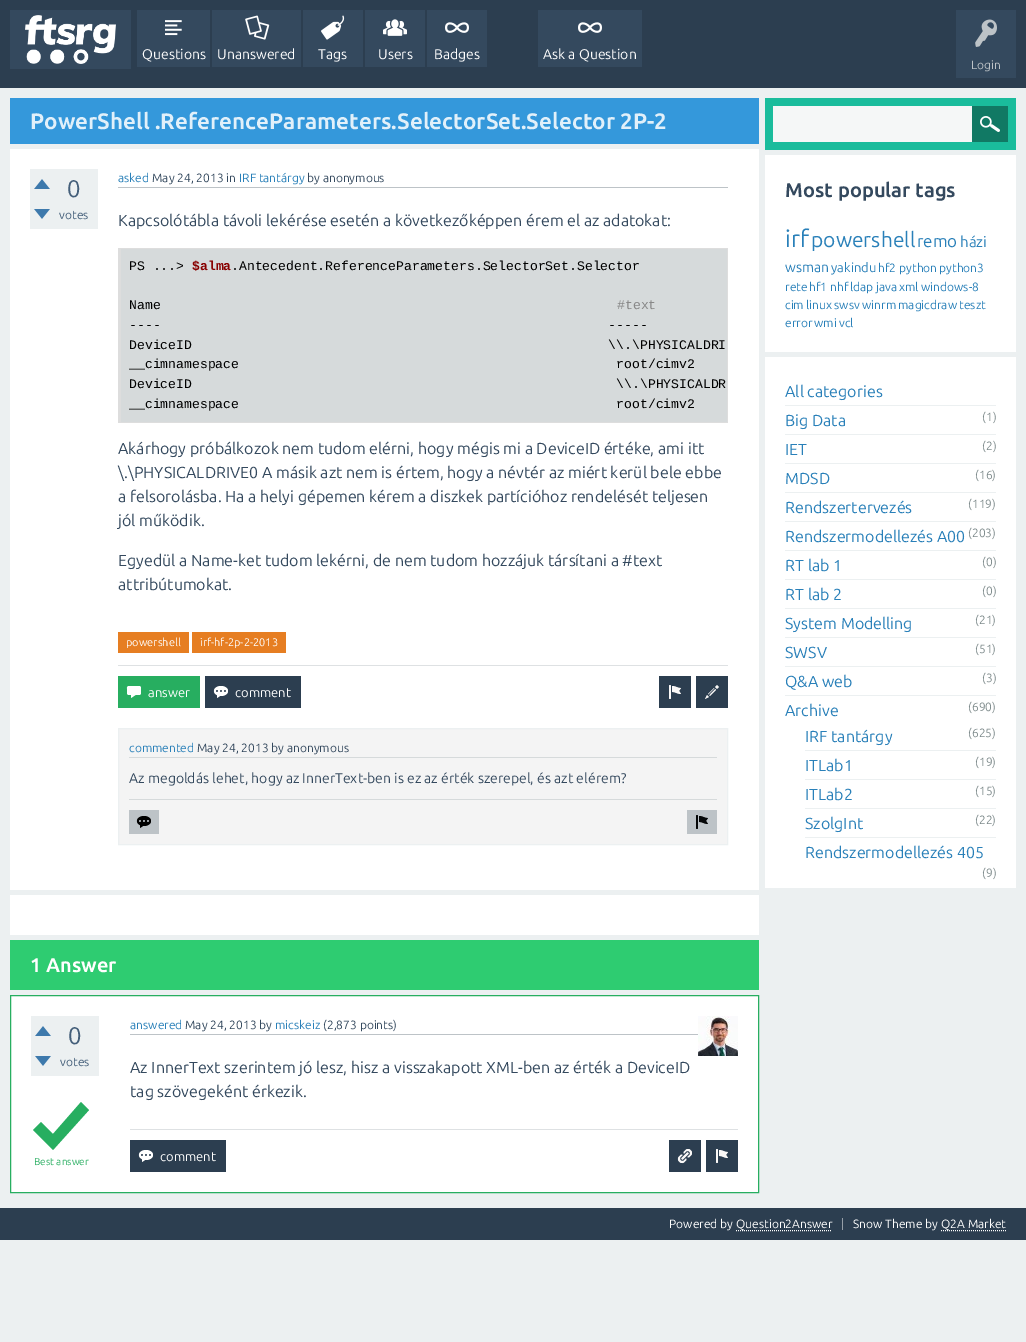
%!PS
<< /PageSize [1026 1342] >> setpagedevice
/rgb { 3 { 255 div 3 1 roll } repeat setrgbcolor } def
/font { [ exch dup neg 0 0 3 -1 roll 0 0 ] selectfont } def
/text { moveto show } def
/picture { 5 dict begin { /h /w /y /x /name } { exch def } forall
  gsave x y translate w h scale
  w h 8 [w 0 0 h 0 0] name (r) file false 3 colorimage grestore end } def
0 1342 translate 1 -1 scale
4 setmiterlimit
236 240 241 rgb
0 0 1026 1342 rectfill
44 62 80 rgb
0 0 1026 88 rectfill
52 73 94 rgb
10 10 121 59 rectfill
(img_01.rgb) 25 15 91 49 picture
137 10 73 57 rectfill
(img_02.rgb) 165 20 17 16 picture
212 10 89 57 rectfill
(img_03.rgb) 245 15 25 25 picture
303 10 60 57 rectfill
(img_04.rgb) 321 15 24 25 picture
365 10 60 57 rectfill
(img_05.rgb) 383 19 24 17 picture
427 10 60 57 rectfill
(img_06.rgb) 445 22 24 11 picture
538 10 104 57 rectfill
(img_06.rgb) 578 22 24 11 picture
956 10 60 68 rectfill
(img_07.rgb) 975 19 22 28 picture
52 152 219 rgb
10 98 749 46 rectfill
255 255 255 rgb
10 149 749 741 rectfill
236 240 241 rgb
30 169 68 60 rectfill
(img_08.rgb) 34 179 16 10 picture
(img_09.rgb) 34 209 16 10 picture
189 195 199 rgb
118 187 610 1 rectfill
221 221 221 rgb
118 248 610 1 rectfill
727 248 1 175 rectfill
118 422 610 1 rectfill
118 248 3 175 rectfill
214 218 219 rgb
121 249 606 173 rectfill
230 126 34 rgb
118 632 71 21 rectfill
192 632 94 21 rectfill
222 225 227 rgb
118 665 610 1 rectfill
39 174 96 rgb
118 676 82 32 rectfill
(img_10.rgb) 126 686 15 12 picture
44 62 80 rgb
205 676 96 32 rectfill
(img_11.rgb) 213 686 15 12 picture
659 676 32 32 rectfill
(img_12.rgb) 669 685 12 14 picture
696 676 32 32 rectfill
(img_13.rgb) 705 685 14 14 picture
244 244 244 rgb
118.5 728.5 moveto 609 0 rlineto 0 116 rlineto -609 0 rlineto closepath gsave fill grestore
236 240 241 rgb
stroke
214 218 219 rgb
129 757 588 1 rectfill
129 799 588 1 rectfill
189 195 199 rgb
129 810 30 24 rectfill
(img_14.rgb) 136 816 15 12 picture
687 810 30 24 rectfill
(img_15.rgb) 696 815 12 14 picture
255 255 255 rgb
10 895 749 40 rectfill
46 204 113 rgb
10 940 749 50 rectfill
255 255 255 rgb
10.5 995.5 moveto 748 0 rlineto 0 197 rlineto -748 0 rlineto closepath gsave fill grestore
39 174 96 rgb
stroke
189 195 199 rgb
130 1034 568 1 rectfill
(img_16.rgb) 698 1016 40 40 picture
39 174 96 rgb
33 1102 56 48 rectfill
(img_17.rgb) 31 1096 60 60 picture
222 225 227 rgb
130 1129 608 1 rectfill
44 62 80 rgb
130 1140 96 32 rectfill
(img_11.rgb) 138 1150 15 12 picture
669 1140 32 32 rectfill
(img_18.rgb) 677 1149 15 15 picture
706 1140 32 32 rectfill
(img_12.rgb) 716 1149 12 14 picture
236 240 241 rgb
31 1016 68 60 rectfill
(img_08.rgb) 35 1026 16 10 picture
(img_09.rgb) 35 1056 16 10 picture
26 188 156 rgb
765 98 251 52 rectfill
245 247 247 rgb
773 106 199 36 rectfill
17 121 100 rgb
972 106 36 36 rectfill
(img_19.rgb) 980 116 20 16 picture
255 255 255 rgb
765 155 251 197 rectfill
765 357 251 531 rectfill
236 240 241 rgb
785 405 211 1 rectfill
785 434 211 1 rectfill
785 463 211 1 rectfill
785 492 211 1 rectfill
785 521 211 1 rectfill
785 550 211 1 rectfill
785 579 211 1 rectfill
785 608 211 1 rectfill
785 637 211 1 rectfill
785 666 211 1 rectfill
785 695 211 1 rectfill
805 750 191 1 rectfill
805 779 191 1 rectfill
805 808 191 1 rectfill
805 837 191 1 rectfill
44 62 80 rgb
0 1208 1026 32 rectfill
150 159 168 rgb
842 1218 1 12 rectfill
255 255 255 rgb
[1 1] 0 setdash
736 1230.5 moveto 96 0 rlineto stroke
941 1230.5 moveto 65 0 rlineto stroke
/Ubuntu-Regular 14 font
(Questions) 142 59 text
(Unanswered) 217 59 text
(Tags) 318 59 text
(Users) 378 59 text
(Badges) 434 59 text
(Ask a Question) 543 59 text
/Ubuntu-Regular 12 font
189 195 199 rgb
(Login) 971 69 text
/Ubuntu-Bold 22.4 font
225 240 250 rgb
(PowerShell .ReferenceParameters.SelectorSet.Selector 2P-2) 30 129 text
/Ubuntu-Regular 24 font
68 95 122 rgb
(0) 67 197 text
/Ubuntu-Regular 12 font
(votes) 59 219 text
41 128 185 rgb
(asked) 118 182 text
52 73 94 rgb
(May 24, 2013 in) 152 182 text
41 128 185 rgb
(IRF tantárgy) 239 182 text
52 73 94 rgb
(by anonymous) 307 182 text
/Ubuntu-Regular 16 font
(Kapcsolótábla távoli lekérése esetén a következőképpen érem el az adatokat:) 118 226 text
/LiberationMono-Regular 13.1 font
0 0 0 rgb
(PS ...>) 129 270 text
/LiberationMono-Bold 13.1 font
136 0 0 rgb
($alma) 192 270 text
/LiberationMono-Regular 13.1 font
0 0 0 rgb
(.Antecedent.ReferenceParameters.SelectorSet.Selector) 231 270 text
(Name) 129 309 text
136 136 136 rgb
(#text) 617 309 text
0 0 0 rgb
(----                                                         -----) 129 329 text
(DeviceID                                                     \\\\.\\PHYSICALDRI) 129 349 text
(__cimnamespace                                                root/cimv2) 129 368 text
(DeviceID                                                      \\\\.\\PHYSICALDR) 129 388 text
(__cimnamespace                                                root/cimv2) 129 408 text
/Ubuntu-Regular 16 font
52 73 94 rgb
(Akárhogy próbálkozok nem tudom elérni, hogy mégis mi a DeviceID értéke, ami itt) 118 454 text
(\\.\\PHYSICALDRIVE0 A másik azt nem is értem, hogy a névtér az miért kerül bele ebbe) 118 478 text
(a felsorolásba. Ha a helyi gépemen kérem a diszkek partícióhoz rendelését teljesen) 118 502 text
(jól működik.) 118 526 text
(Egyedül a Name-ket tudom lekérni, de nem tudom hozzájuk társítani a #text) 118 566 text
(attribútumokat.) 118 590 text
/Ubuntu-Regular 11 font
255 255 255 rgb
(powershell) 126 646 text
(irf-hf-2p-2-2013) 200 646 text
/Ubuntu-Regular 13 font
(answer) 148 697 text
(comment) 235 697 text
/Ubuntu-Regular 12 font
41 128 185 rgb
(commented) 129 752 text
52 73 94 rgb
(May 24, 2013 by anonymous) 197 752 text
/Ubuntu-Regular 14 font
(Az megoldás lehet, hogy az InnerText-ben is ez az érték szerepel, és azt elérem?) 129 783 text
/Ubuntu-Bold 20 font
255 255 255 rgb
(1 Answer) 30 972 text
/Ubuntu-Regular 12 font
41 128 185 rgb
(answered) 130 1029 text
52 73 94 rgb
(May 24, 2013 by) 185 1029 text
41 128 185 rgb
(micskeiz) 275 1029 text
52 73 94 rgb
(\(2,873 points\)) 323 1029 text
/Ubuntu-Regular 16 font
(Az InnerText szerintem jó lesz, hisz a visszakapott XML-ben az érték a DeviceID) 130 1073 text
(tag szövegeként érkezik.) 130 1097 text
/Ubuntu-Regular 10 font
39 174 96 rgb
(Best answer) 34 1165 text
/Ubuntu-Regular 13 font
255 255 255 rgb
(comment) 160 1161 text
/Ubuntu-Regular 24 font
68 95 122 rgb
(0) 68 1044 text
/Ubuntu-Regular 12 font
(votes) 60 1066 text
/Ubuntu-Bold 20 font
52 73 94 rgb
(Most popular tags) 785 197 text
/Ubuntu-Regular 24 font
41 128 185 rgb
(irf) 785 247 text
/Ubuntu-Regular 21 font
(powershell) 811 247 text
/Ubuntu-Regular 17 font
(remo) 917 247 text
/Ubuntu-Regular 15 font
(házi) 960 247 text
/Ubuntu-Regular 14 font
(wsman) 785 272 text
/Ubuntu-Regular 13 font
(yakindu) 831 272 text
/Ubuntu-Regular 12 font
(hf2) 878 272 text
(python) 899 272 text
(python3) 939 272 text
(rete) 785 291 text
(hf1) 809 291 text
(nhf) 830 291 text
(ldap) 850 291 text
(java) 876 291 text
(xml) 899 291 text
(windows-8) 921 291 text
(cim) 785 309 text
(linux) 806 309 text
(swsv) 834 309 text
(winrm) 862 309 text
(magicdraw) 898 309 text
(teszt) 959 309 text
(error) 785 327 text
(wmi) 814 327 text
(vcl) 839 327 text
/Ubuntu-Regular 16 font
(All categories) 785 397 text
(Big Data) 785 426 text
/Ubuntu-Regular 12 font
127 140 141 rgb
(\(1\)) 982 421 text
/Ubuntu-Regular 16 font
41 128 185 rgb
(IET) 785 455 text
/Ubuntu-Regular 12 font
127 140 141 rgb
(\(2\)) 982 450 text
/Ubuntu-Regular 16 font
41 128 185 rgb
(MDSD) 785 484 text
/Ubuntu-Regular 12 font
127 140 141 rgb
(\(16\)) 975 479 text
/Ubuntu-Regular 16 font
41 128 185 rgb
(Rendszertervezés) 785 513 text
/Ubuntu-Regular 12 font
127 140 141 rgb
(\(119\)) 968 508 text
/Ubuntu-Regular 16 font
41 128 185 rgb
(Rendszermodellezés A00) 785 542 text
/Ubuntu-Regular 12 font
127 140 141 rgb
(\(203\)) 968 537 text
/Ubuntu-Regular 16 font
41 128 185 rgb
(RT lab 1) 785 571 text
/Ubuntu-Regular 12 font
127 140 141 rgb
(\(0\)) 982 566 text
/Ubuntu-Regular 16 font
41 128 185 rgb
(RT lab 2) 785 600 text
/Ubuntu-Regular 12 font
127 140 141 rgb
(\(0\)) 982 595 text
/Ubuntu-Regular 16 font
41 128 185 rgb
(System Modelling) 785 629 text
/Ubuntu-Regular 12 font
127 140 141 rgb
(\(21\)) 975 624 text
/Ubuntu-Regular 16 font
41 128 185 rgb
(SWSV) 785 658 text
/Ubuntu-Regular 12 font
127 140 141 rgb
(\(51\)) 975 653 text
/Ubuntu-Regular 16 font
41 128 185 rgb
(Q&A web) 785 687 text
/Ubuntu-Regular 12 font
127 140 141 rgb
(\(3\)) 982 682 text
/Ubuntu-Regular 16 font
41 128 185 rgb
(Archive) 785 716 text
/Ubuntu-Regular 12 font
127 140 141 rgb
(\(690\)) 968 711 text
/Ubuntu-Regular 16 font
41 128 185 rgb
(IRF tantárgy) 805 742 text
/Ubuntu-Regular 12 font
127 140 141 rgb
(\(625\)) 968 737 text
/Ubuntu-Regular 16 font
41 128 185 rgb
(ITLab1) 805 771 text
/Ubuntu-Regular 12 font
127 140 141 rgb
(\(19\)) 975 766 text
/Ubuntu-Regular 16 font
41 128 185 rgb
(ITLab2) 805 800 text
/Ubuntu-Regular 12 font
127 140 141 rgb
(\(15\)) 975 795 text
/Ubuntu-Regular 16 font
41 128 185 rgb
(SzolgInt) 805 829 text
/Ubuntu-Regular 12 font
127 140 141 rgb
(\(22\)) 975 824 text
/Ubuntu-Regular 16 font
41 128 185 rgb
(Rendszermodellezés 405) 805 858 text
/Ubuntu-Regular 12 font
127 140 141 rgb
(\(9\)) 982 877 text
255 255 255 rgb
(Powered by) 669 1228 text
(Question2Answer) 736 1228 text
(Snow Theme by) 853 1228 text
(Q2A Market) 941 1228 text
showpage
